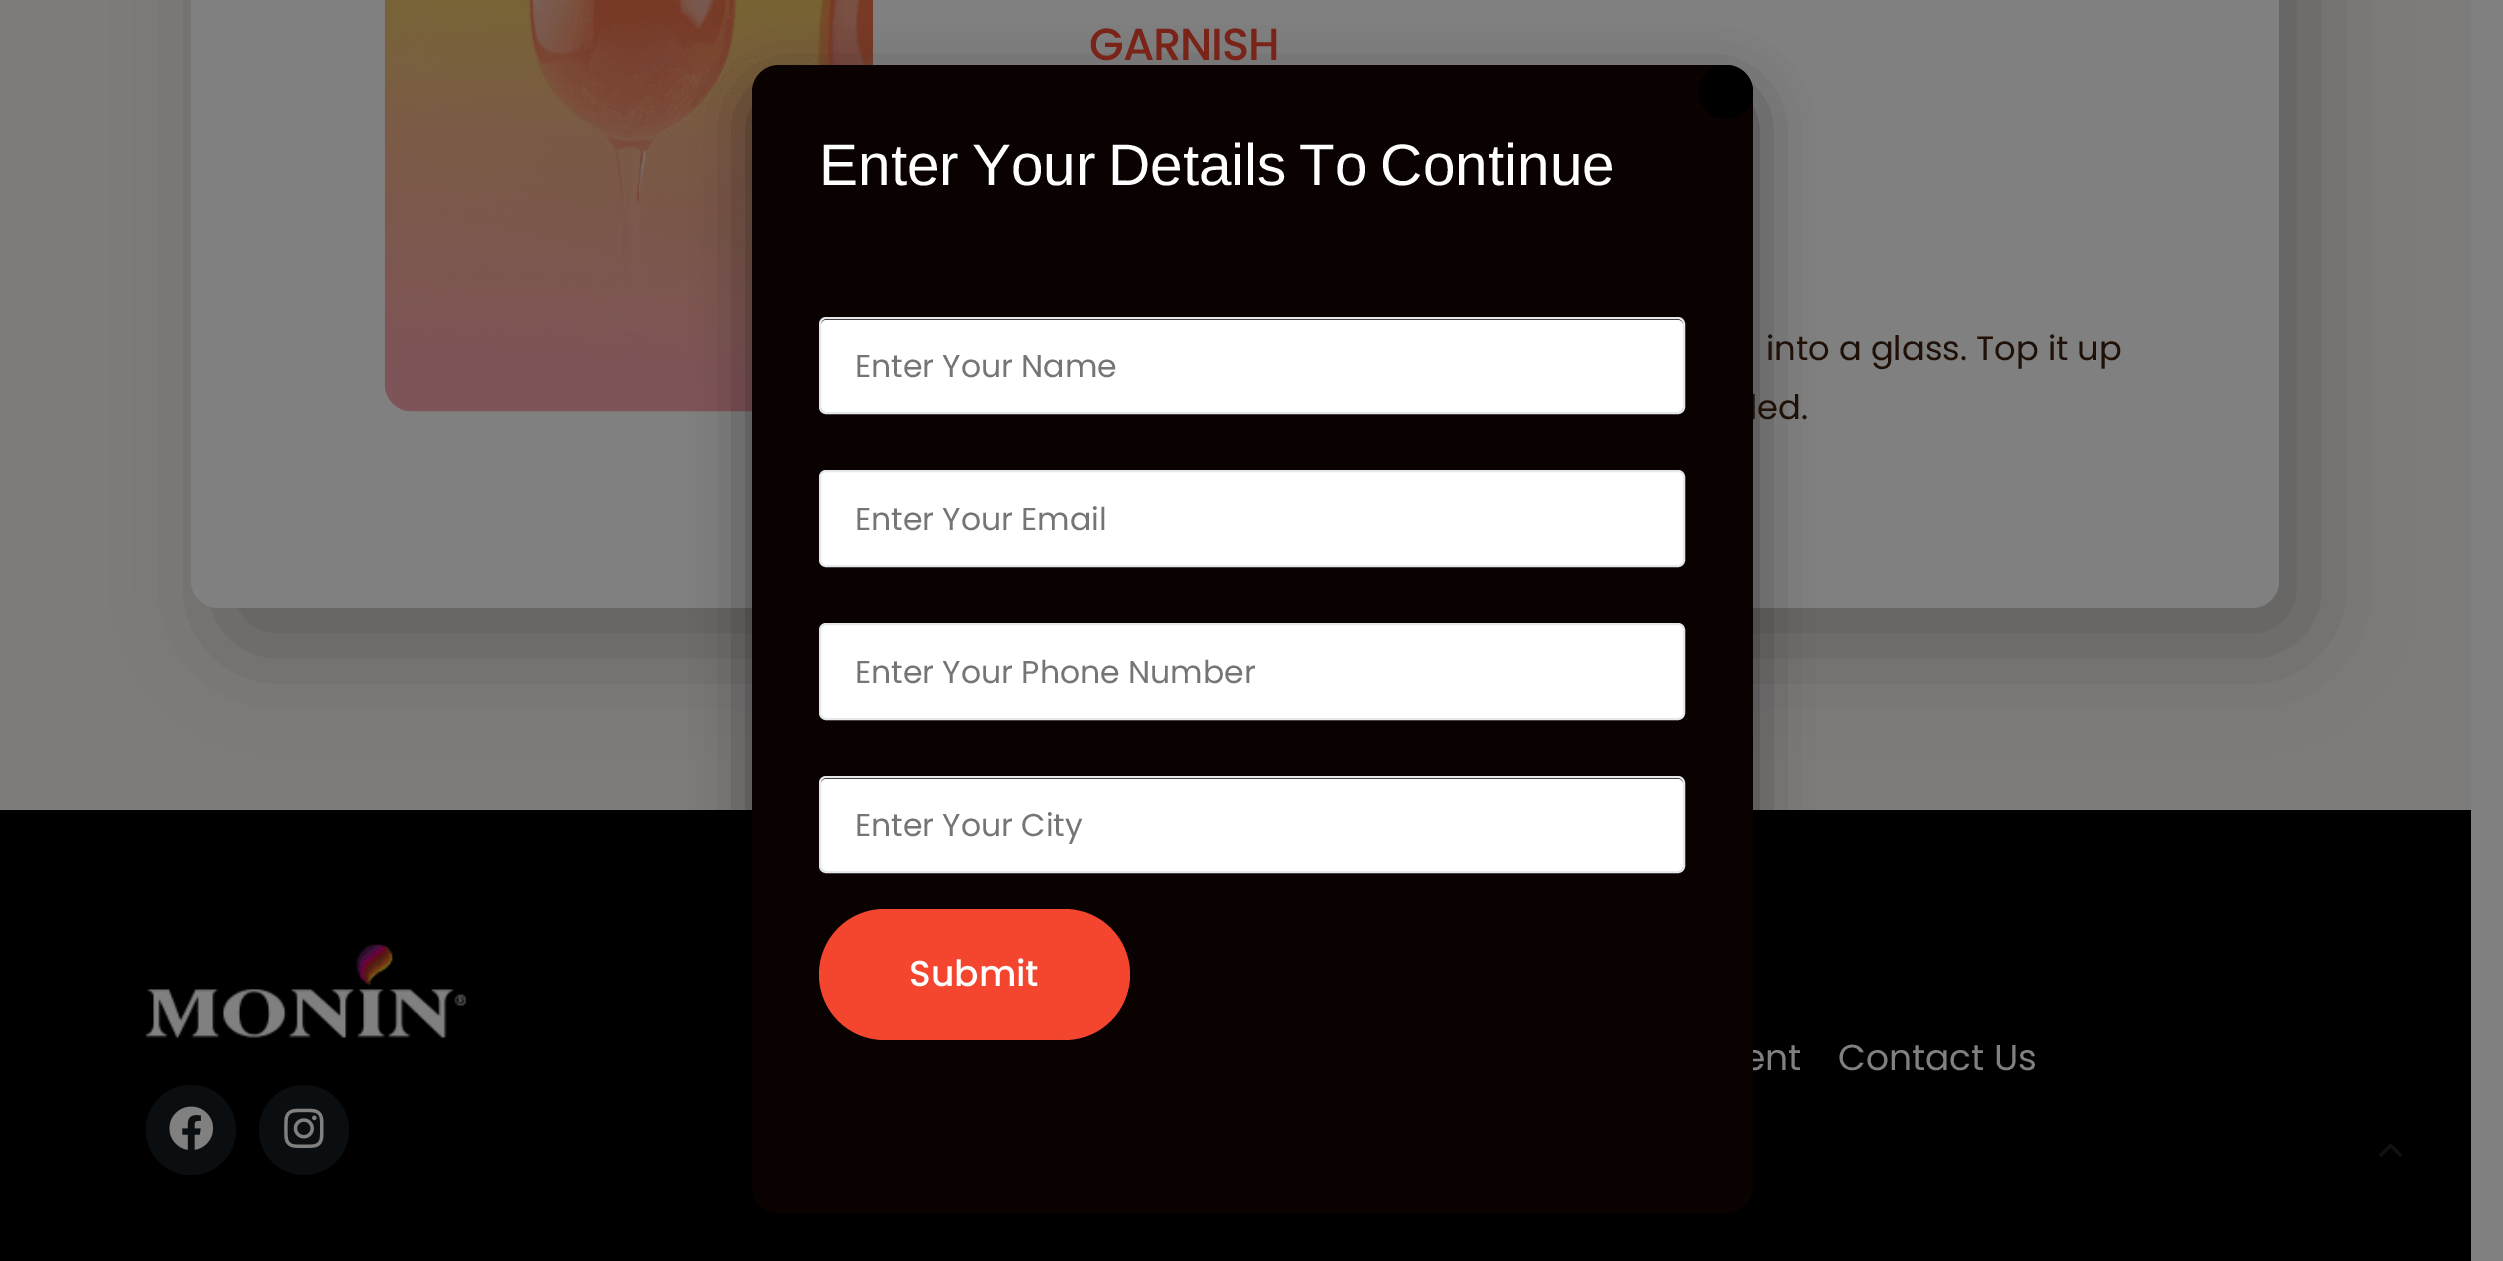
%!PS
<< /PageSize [2503 1261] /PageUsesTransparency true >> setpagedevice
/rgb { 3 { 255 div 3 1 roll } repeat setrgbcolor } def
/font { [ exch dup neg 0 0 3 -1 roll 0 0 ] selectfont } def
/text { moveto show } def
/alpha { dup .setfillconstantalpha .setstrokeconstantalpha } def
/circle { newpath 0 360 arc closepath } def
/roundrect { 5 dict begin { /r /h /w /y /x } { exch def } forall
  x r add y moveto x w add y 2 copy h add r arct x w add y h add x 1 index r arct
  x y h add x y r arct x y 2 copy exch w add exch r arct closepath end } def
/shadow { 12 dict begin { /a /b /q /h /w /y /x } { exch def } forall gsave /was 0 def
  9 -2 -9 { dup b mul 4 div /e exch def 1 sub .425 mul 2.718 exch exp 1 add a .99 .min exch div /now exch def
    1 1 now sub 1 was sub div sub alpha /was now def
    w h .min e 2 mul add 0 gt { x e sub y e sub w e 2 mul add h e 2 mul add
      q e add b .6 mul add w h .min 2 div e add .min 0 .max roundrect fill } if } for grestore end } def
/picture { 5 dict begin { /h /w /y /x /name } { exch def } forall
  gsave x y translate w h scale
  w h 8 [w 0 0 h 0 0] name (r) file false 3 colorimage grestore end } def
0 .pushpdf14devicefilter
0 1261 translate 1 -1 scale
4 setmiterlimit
128 128 128 rgb
0 0 2503 1261 rectfill
126 124 123 rgb
0 0 2471 810 rectfill
0 0 0 rgb
221 -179 2088 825 27 50.5 0.25 shadow
128 128 128 rgb
191 -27 2088 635 27 roundrect fill
(img_01.rgb) 384 0 489 412 picture
0 0 0 rgb
0 810 2471 451 rectfill
(img_02.rgb) 146 944 320 94 picture
11 14 16 rgb
191 1130 45 circle fill
(img_03.rgb) 169 1106 45 44 picture
304 1130 45 circle fill
(img_04.rgb) 284 1108 40 41 picture
(img_05.rgb) 2379 1143 23 14 picture
2 2 2 rgb
752 88 1001 1147 27 28 0.5 shadow
/Poppins-Medium 45 font
122 35 24 rgb
1089 60 moveto -1.25 0 (GARNISH) ashow
/Poppins-Regular 33.75 font
32 17 8 rgb
(into a glass. Top it up) 1766 360 text
(led.) 1749 419 text
/Poppins-Regular 36 font
128 128 128 rgb
(ent) 1743 1070 text
(Contact Us) 1838 1070 text
10 1 1 rgb
752 65 1001 1148 27 roundrect fill
0 0 0 rgb
1726 92 27 circle fill
/LiberationSans-Regular 58.5 font
255 255 255 rgb
819 185 moveto -3.5 0 32 (Enter Your Details To Continue) widthshow
821 320 862 92 5 roundrect fill
230 233 236 rgb
2 setlinewidth
820 318 864 95 6 roundrect stroke
/Poppins-Regular 31.5 font
117 117 117 rgb
(Enter Your Name) 855 377 text
255 255 255 rgb
820 471 864 95 6 roundrect gsave fill grestore
230 233 236 rgb
stroke
117 117 117 rgb
(Enter Your Email) 855 530 text
255 255 255 rgb
820 624 864 95 6 roundrect gsave fill grestore
230 233 236 rgb
stroke
117 117 117 rgb
(Enter Your Phone Number) 855 683 text
255 255 255 rgb
821 779 862 92 5 roundrect fill
230 233 236 rgb
820 777 864 95 6 roundrect stroke
117 117 117 rgb
(Enter Your City) 855 836 text
244 70 47 rgb
819 909 311 131 65.5 roundrect fill
/Poppins-Medium 36 font
255 255 255 rgb
(Submit) 909 986 text
.poppdf14devicefilter showpage
